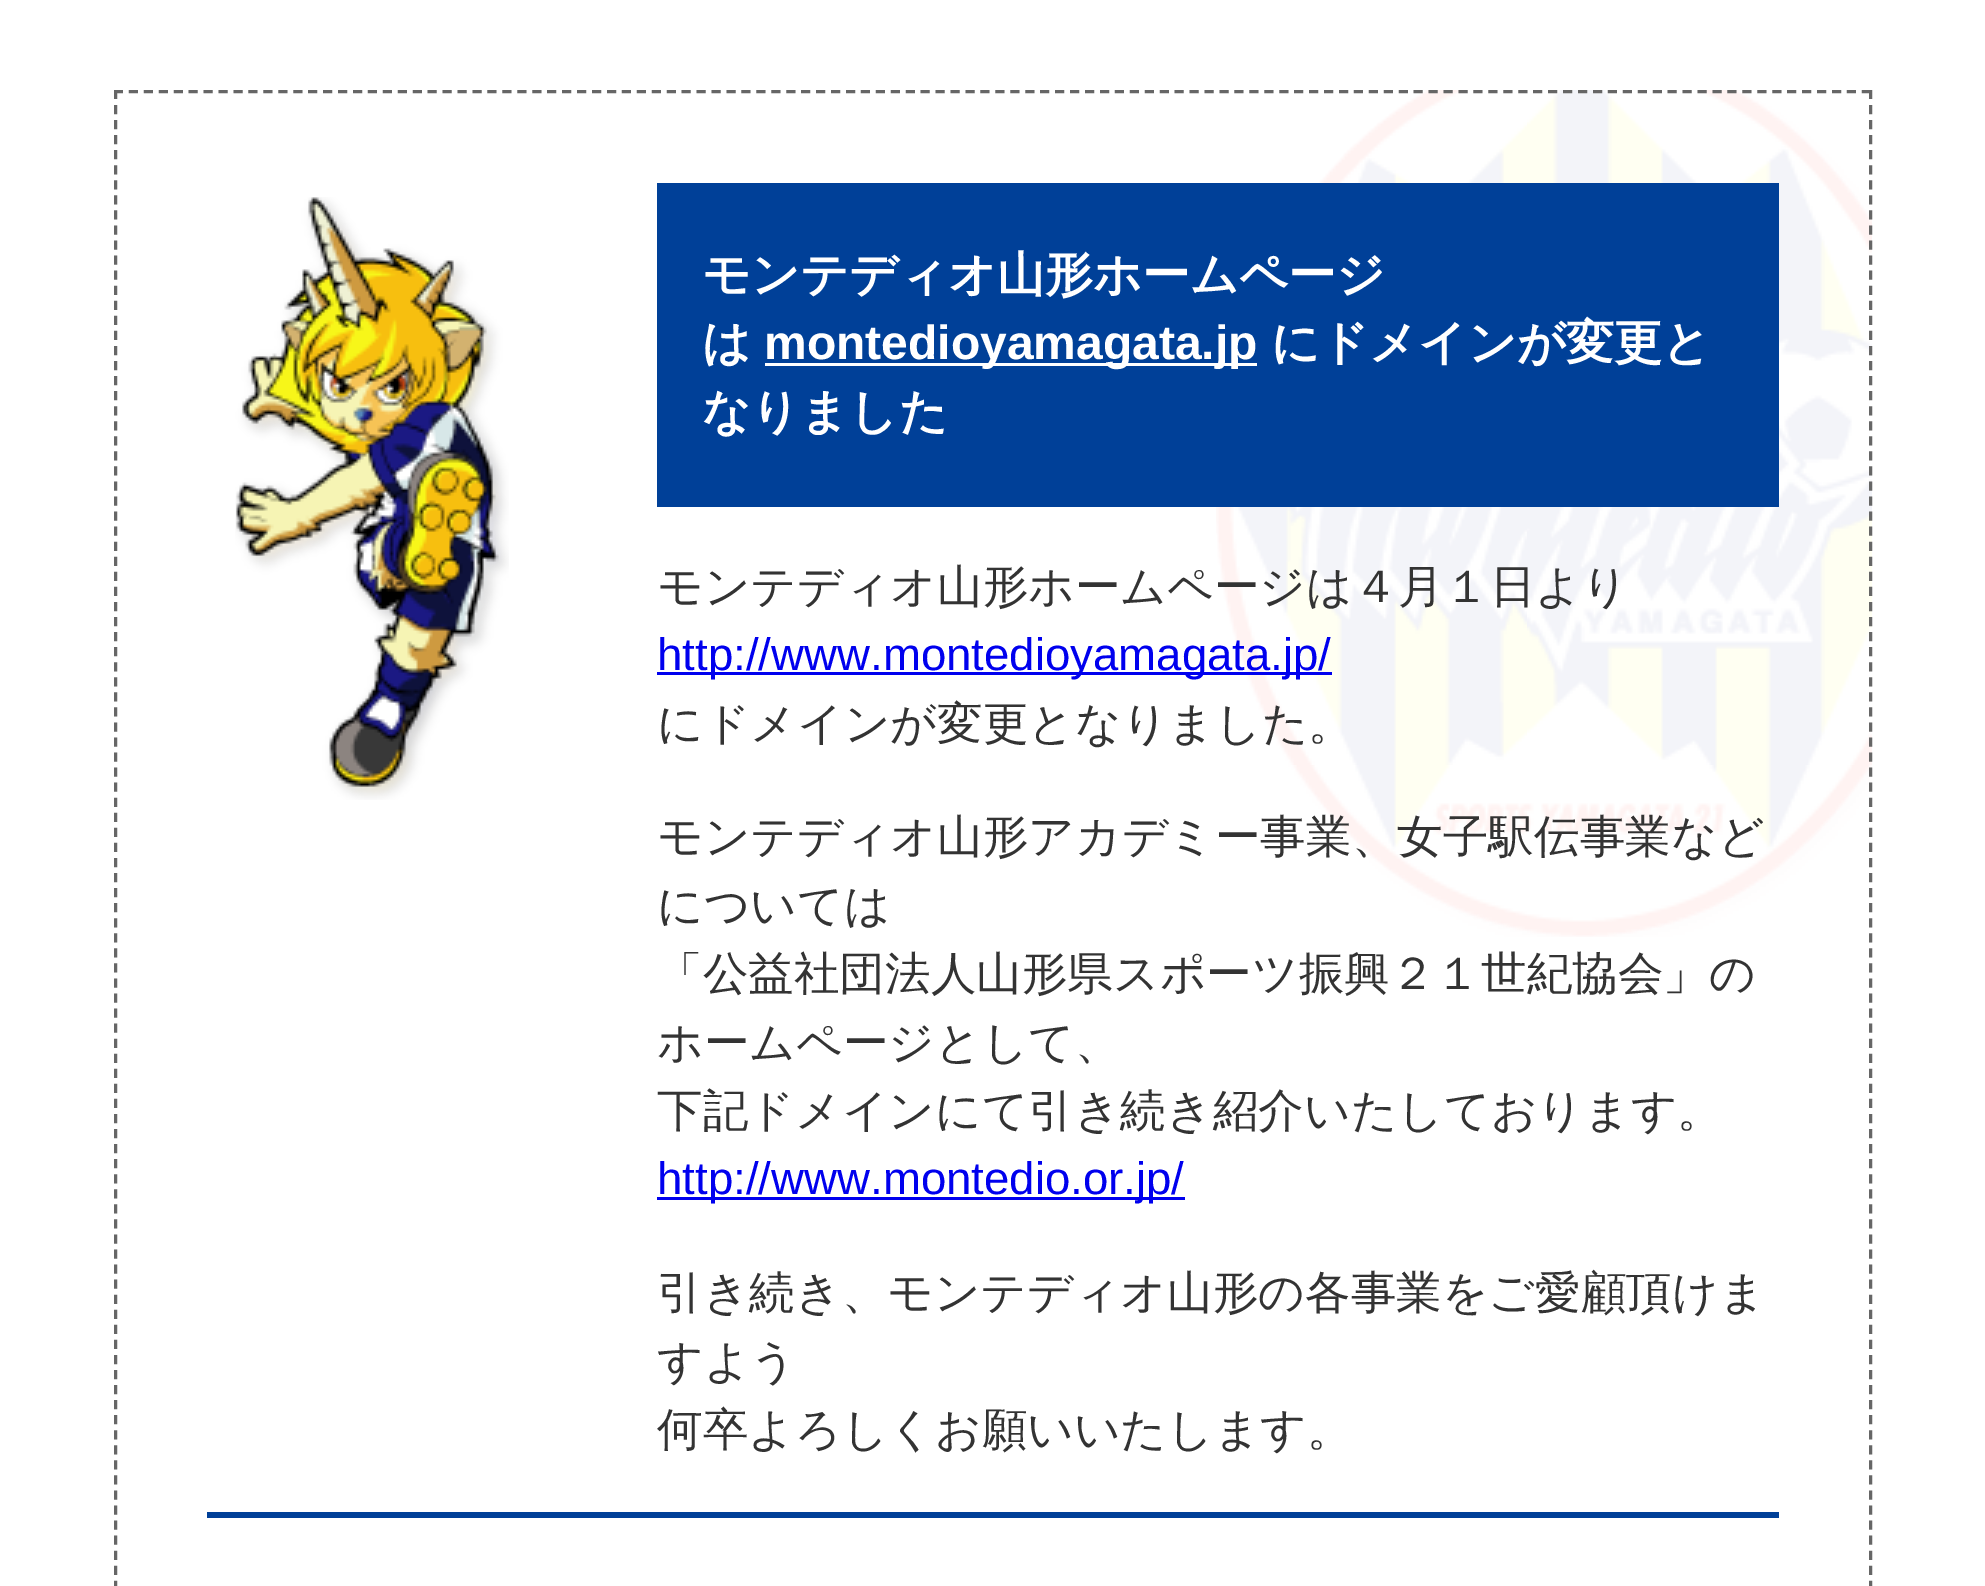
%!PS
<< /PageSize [1985 1586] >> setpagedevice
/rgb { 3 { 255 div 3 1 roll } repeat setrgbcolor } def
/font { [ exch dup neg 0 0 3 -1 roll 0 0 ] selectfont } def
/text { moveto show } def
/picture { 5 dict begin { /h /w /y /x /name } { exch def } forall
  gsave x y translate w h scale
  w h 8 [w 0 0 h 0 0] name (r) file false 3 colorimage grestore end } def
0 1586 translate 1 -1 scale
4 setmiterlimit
255 255 255 rgb
0 0 1985 1586 rectfill
(img_01.rgb) 1216 90 656 847 picture
102 102 102 rgb
3 setlinewidth
[9 5.94] 0 setdash
114 91.5 moveto 1758 0 rlineto stroke
[9 6.06] 0 setdash
1870.5 90 moveto 0 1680 rlineto stroke
115.5 90 moveto 0 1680 rlineto stroke
(img_02.rgb) 235 197 274 603 picture
0 64 152 rgb
657 183 1122 324 rectfill
255 255 255 rgb
765 363 492 3 rectfill
0 0 238 rgb
657 672 675 3 rectfill
657 1197 528 3 rectfill
0 64 152 rgb
207 1512 1572 6 rectfill
/WenQuanYiZenHei-Bold 48 font
255 255 255 rgb
(モンテディオ山形ホームページ) 702 291 text
(は) 702 359 text
/LiberationSans-Bold 48 font
(montedioyamagata.jp) 764 359 text
/WenQuanYiZenHei-Bold 48 font
(にドメインが変更と) 1271 359 text
(なりました) 702 428 text
/WenQuanYiZenHei-Medium 45.6 font
51 51 51 rgb
(モンテディオ山形ホームページは４月１日より) 657 602 text
/LiberationSans-Regular 45.6 font
0 0 238 rgb
(http://www.montedioyamagata.jp/) 657 670 text
/WenQuanYiZenHei-Medium 45.6 font
51 51 51 rgb
(にドメインが変更となりました。) 657 739 text
(モンテディオ山形アカデミー事業、女子駅伝事業など) 657 852 text
(については) 657 921 text
(「公益社団法人山形県スポーツ振興２１世紀協会」の) 657 989 text
(ホームページとして、) 657 1058 text
(下記ドメインにて引き続き紹介いたしております。) 657 1126 text
/LiberationSans-Regular 45.6 font
0 0 238 rgb
(http://www.montedio.or.jp/) 657 1194 text
/WenQuanYiZenHei-Medium 45.6 font
51 51 51 rgb
(引き続き、モンテディオ山形の各事業をご愛顧頂けま) 657 1308 text
(すよう) 657 1377 text
(何卒よろしくお願いいたします。) 657 1445 text
showpage
